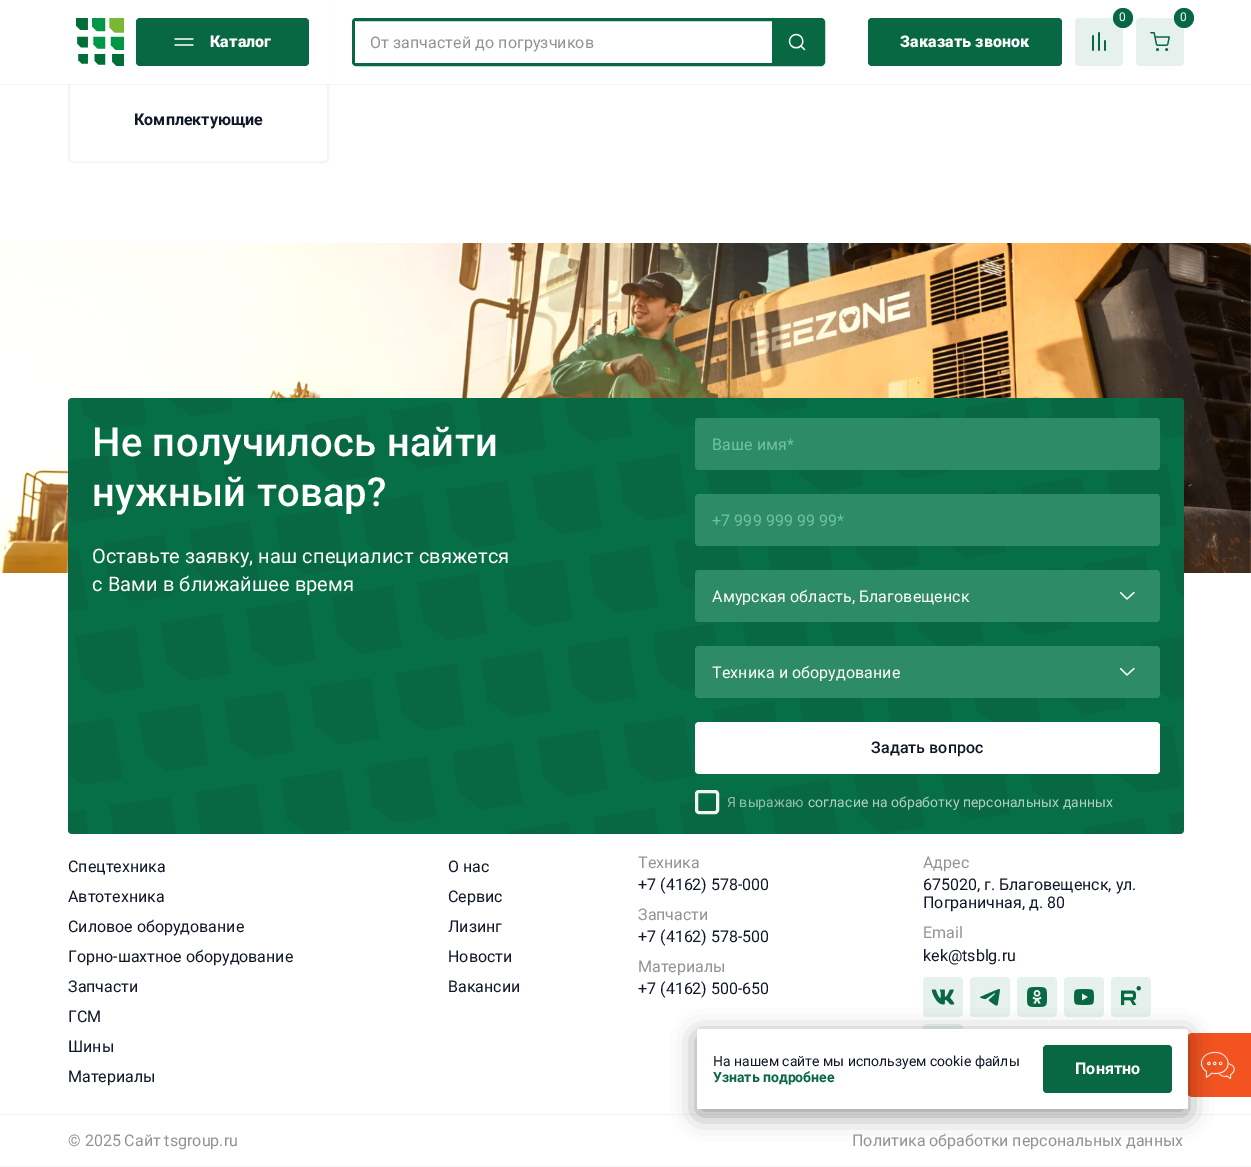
%!PS
<< /PageSize [1251 1167] /PageUsesTransparency true >> setpagedevice
/rgb { 3 { 255 div 3 1 roll } repeat setrgbcolor } def
/font { [ exch dup neg 0 0 3 -1 roll 0 0 ] selectfont } def
/text { moveto show } def
/alpha { dup .setfillconstantalpha .setstrokeconstantalpha } def
/circle { newpath 0 360 arc closepath } def
/roundrect { 5 dict begin { /r /h /w /y /x } { exch def } forall
  x r add y moveto x w add y 2 copy h add r arct x w add y h add x 1 index r arct
  x y h add x y r arct x y 2 copy exch w add exch r arct closepath end } def
/shadow { 12 dict begin { /a /b /q /h /w /y /x } { exch def } forall gsave /was 0 def
  9 -2 -9 { dup b mul 4 div /e exch def 1 sub .425 mul 2.718 exch exp 1 add a .99 .min exch div /now exch def
    1 1 now sub 1 was sub div sub alpha /was now def
    w h .min e 2 mul add 0 gt { x e sub y e sub w e 2 mul add h e 2 mul add
      q e add b .6 mul add w h .min 2 div e add .min 0 .max roundrect fill } if } for grestore end } def
/picture { 5 dict begin { /h /w /y /x /name } { exch def } forall
  gsave x y translate w h scale
  w h 8 [w 0 0 h 0 0] name (r) file false 3 colorimage grestore end } def
0 .pushpdf14devicefilter
0 1167 translate 1 -1 scale
4 setmiterlimit
255 255 255 rgb
0 0 1251 1167 rectfill
243 244 246 rgb
2 setlinewidth
69 -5 259 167 3 roundrect stroke
255 255 255 rgb
68 0 261 84 rectfill
244 244 244 rgb
0 84 1251 1 rectfill
230 241 237 rgb
1075 18 48 48 4 roundrect fill
9 104 68 rgb
1123 18 10 circle fill
(img_01.rgb) 1092 32 14 19 picture
230 241 237 rgb
1136 18 48 48 4 roundrect fill
9 104 68 rgb
1184 18 10 circle fill
(img_02.rgb) 1150 32 20 19 picture
(img_03.rgb) 76 18 48 48 picture
136 18 173 48 4 roundrect fill
(img_04.rgb) 174 38 20 8 picture
3 setlinewidth
353.5 19.5 470 45 2.5 roundrect stroke
255 255 255 rgb
355 21 1 42 rectfill
9 104 68 rgb
772 21 50 42 rectfill
(img_05.rgb) 788 33 18 18 picture
868 18 194 48 4 roundrect fill
(img_06.rgb) 0 243 1251 330 picture
(img_07.rgb) 68 398 1116 436 picture
45 139 104 rgb
695 418 465 52 4 roundrect fill
695 494 465 52 4 roundrect fill
695 570 465 52 4 roundrect fill
255 255 255 rgb
1.2 setlinewidth
1 setlinecap
1 setlinejoin
1134 592.5 moveto -7 6.5 rlineto -6.5 -6.5 rlineto stroke
45 139 104 rgb
695 646 465 52 4 roundrect fill
255 255 255 rgb
1134 668.5 moveto -7 6.5 rlineto -6.5 -6.5 rlineto stroke
695 722 465 52 4 roundrect fill
243 244 246 rgb
3 setlinewidth
0 setlinecap
0 setlinejoin
696.5 791.5 21 21 2.5 roundrect stroke
(img_08.rgb) 923 977 40 40 picture
(img_09.rgb) 970 977 40 40 picture
(img_10.rgb) 1017 977 40 40 picture
(img_11.rgb) 1064 977 40 40 picture
(img_12.rgb) 1111 977 40 40 picture
(img_13.rgb) 923 1024 40 5 picture
244 244 244 rgb
0 1114 1251 1 rectfill
0 1166 1251 1 rectfill
242 83 33 rgb
1193 1033 moveto 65 0 rlineto 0 64 rlineto -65 0 rlineto -4 0 -7 -3 -7 -7 rcurveto 0 -50 rlineto 0 -4 3 -7 7 -7 rcurveto closepath fill
(img_14.rgb) 1200 1051 35 29 picture
0 0 0 rgb
697 1035 491 80 2 12 0.4 shadow
255 255 255 rgb
697 1029 491 80 2 roundrect fill
9 104 68 rgb
1043 1045 129 48 4 roundrect fill
/Roboto-Regular 12 font
255 255 255 rgb
(0) 1119 21 text
(0) 1180 21 text
/Roboto-Black 16 font
210 47 moveto 0.1 0 (Каталог) ashow
/Roboto-Regular 16 font
147 147 147 rgb
370 48 moveto 0.1 0 (От запчастей до погрузчиков) ashow
/Roboto-Black 16 font
255 255 255 rgb
900 47 moveto 0.1 0 (Заказать звонок) ashow
/Roboto-Bold 16 font
17 24 39 rgb
(Комплектующие) 134 125 text
/Roboto-Medium 40 font
255 255 255 rgb
92 456 moveto 0.25 0 (Не получилось найти) ashow
92 506 moveto 0.25 0 (нужный товар?) ashow
/Roboto-Regular 20 font
92 563 moveto 0.1 0 (Оставьте заявку, наш специалист свяжется) ashow
92 591 moveto 0.1 0 (с Вами в ближайшее время) ashow
/Roboto-Regular 16 font
112 194 163 rgb
712 450 moveto 0.1 0 (Ваше имя*) ashow
712 526 moveto 0.1 0 (+7 999 999 99 99*) ashow
gsave
712 588 431 17 rectclip
255 255 255 rgb
712 602 moveto 0.1 0 (Амурская область, Благовещенск) ashow
grestore
gsave
712 664 431 17 rectclip
255 255 255 rgb
712 678 moveto 0.1 0 (Техника и оборудование) ashow
grestore
/Roboto-Medium 16 font
17 24 39 rgb
871 753 moveto 0.1 0 (Задать вопрос) ashow
/Roboto-Regular 14 font
146 190 173 rgb
727 807 moveto 0.05 0 (Я выражаю) ashow
174 205 195 rgb
808 807 moveto 0.05 0 (согласие на обработку персональных данных) ashow
/Roboto-Regular 16 font
17 24 39 rgb
(Спецтехника) 68 872 text
(Автотехника) 68 902 text
(Силовое оборудование) 68 932 text
(Горно-шахтное оборудование) 68 962 text
(Запчасти) 68 992 text
(ГСМ) 68 1022 text
(Шины) 68 1052 text
(Материалы) 68 1082 text
(О нас) 448 872 text
(Сервис) 448 902 text
(Лизинг) 448 932 text
(Новости) 448 962 text
(Вакансии) 448 992 text
147 147 147 rgb
(Техника) 638 868 text
17 24 39 rgb
(+7 \(4162\) 578-000) 638 890 text
147 147 147 rgb
(Запчасти) 638 920 text
17 24 39 rgb
(+7 \(4162\) 578-500) 638 942 text
147 147 147 rgb
(Материалы) 638 972 text
17 24 39 rgb
(+7 \(4162\) 500-650) 638 994 text
147 147 147 rgb
(Адрес) 923 868 text
17 24 39 rgb
(675020, г. Благовещенск, ул.) 923 890 text
(Пограничная, д. 80) 923 908 text
147 147 147 rgb
(Email) 923 938 text
17 24 39 rgb
(kek@tsblg.ru) 923 961 text
147 147 147 rgb
(© 2025 Сайт tsgroup.ru) 68 1146 text
(Политика обработки персональных данных) 852 1146 text
/Roboto-Regular 14 font
17 24 39 rgb
(На нашем сайте мы используем cookie файлы) 713 1066 text
/Roboto-Bold 14 font
9 104 68 rgb
(Узнать подробнее) 713 1082 text
/Roboto-Bold 16 font
255 255 255 rgb
1075 1074 moveto 0.1 0 (Понятно) ashow
.poppdf14devicefilter showpage
